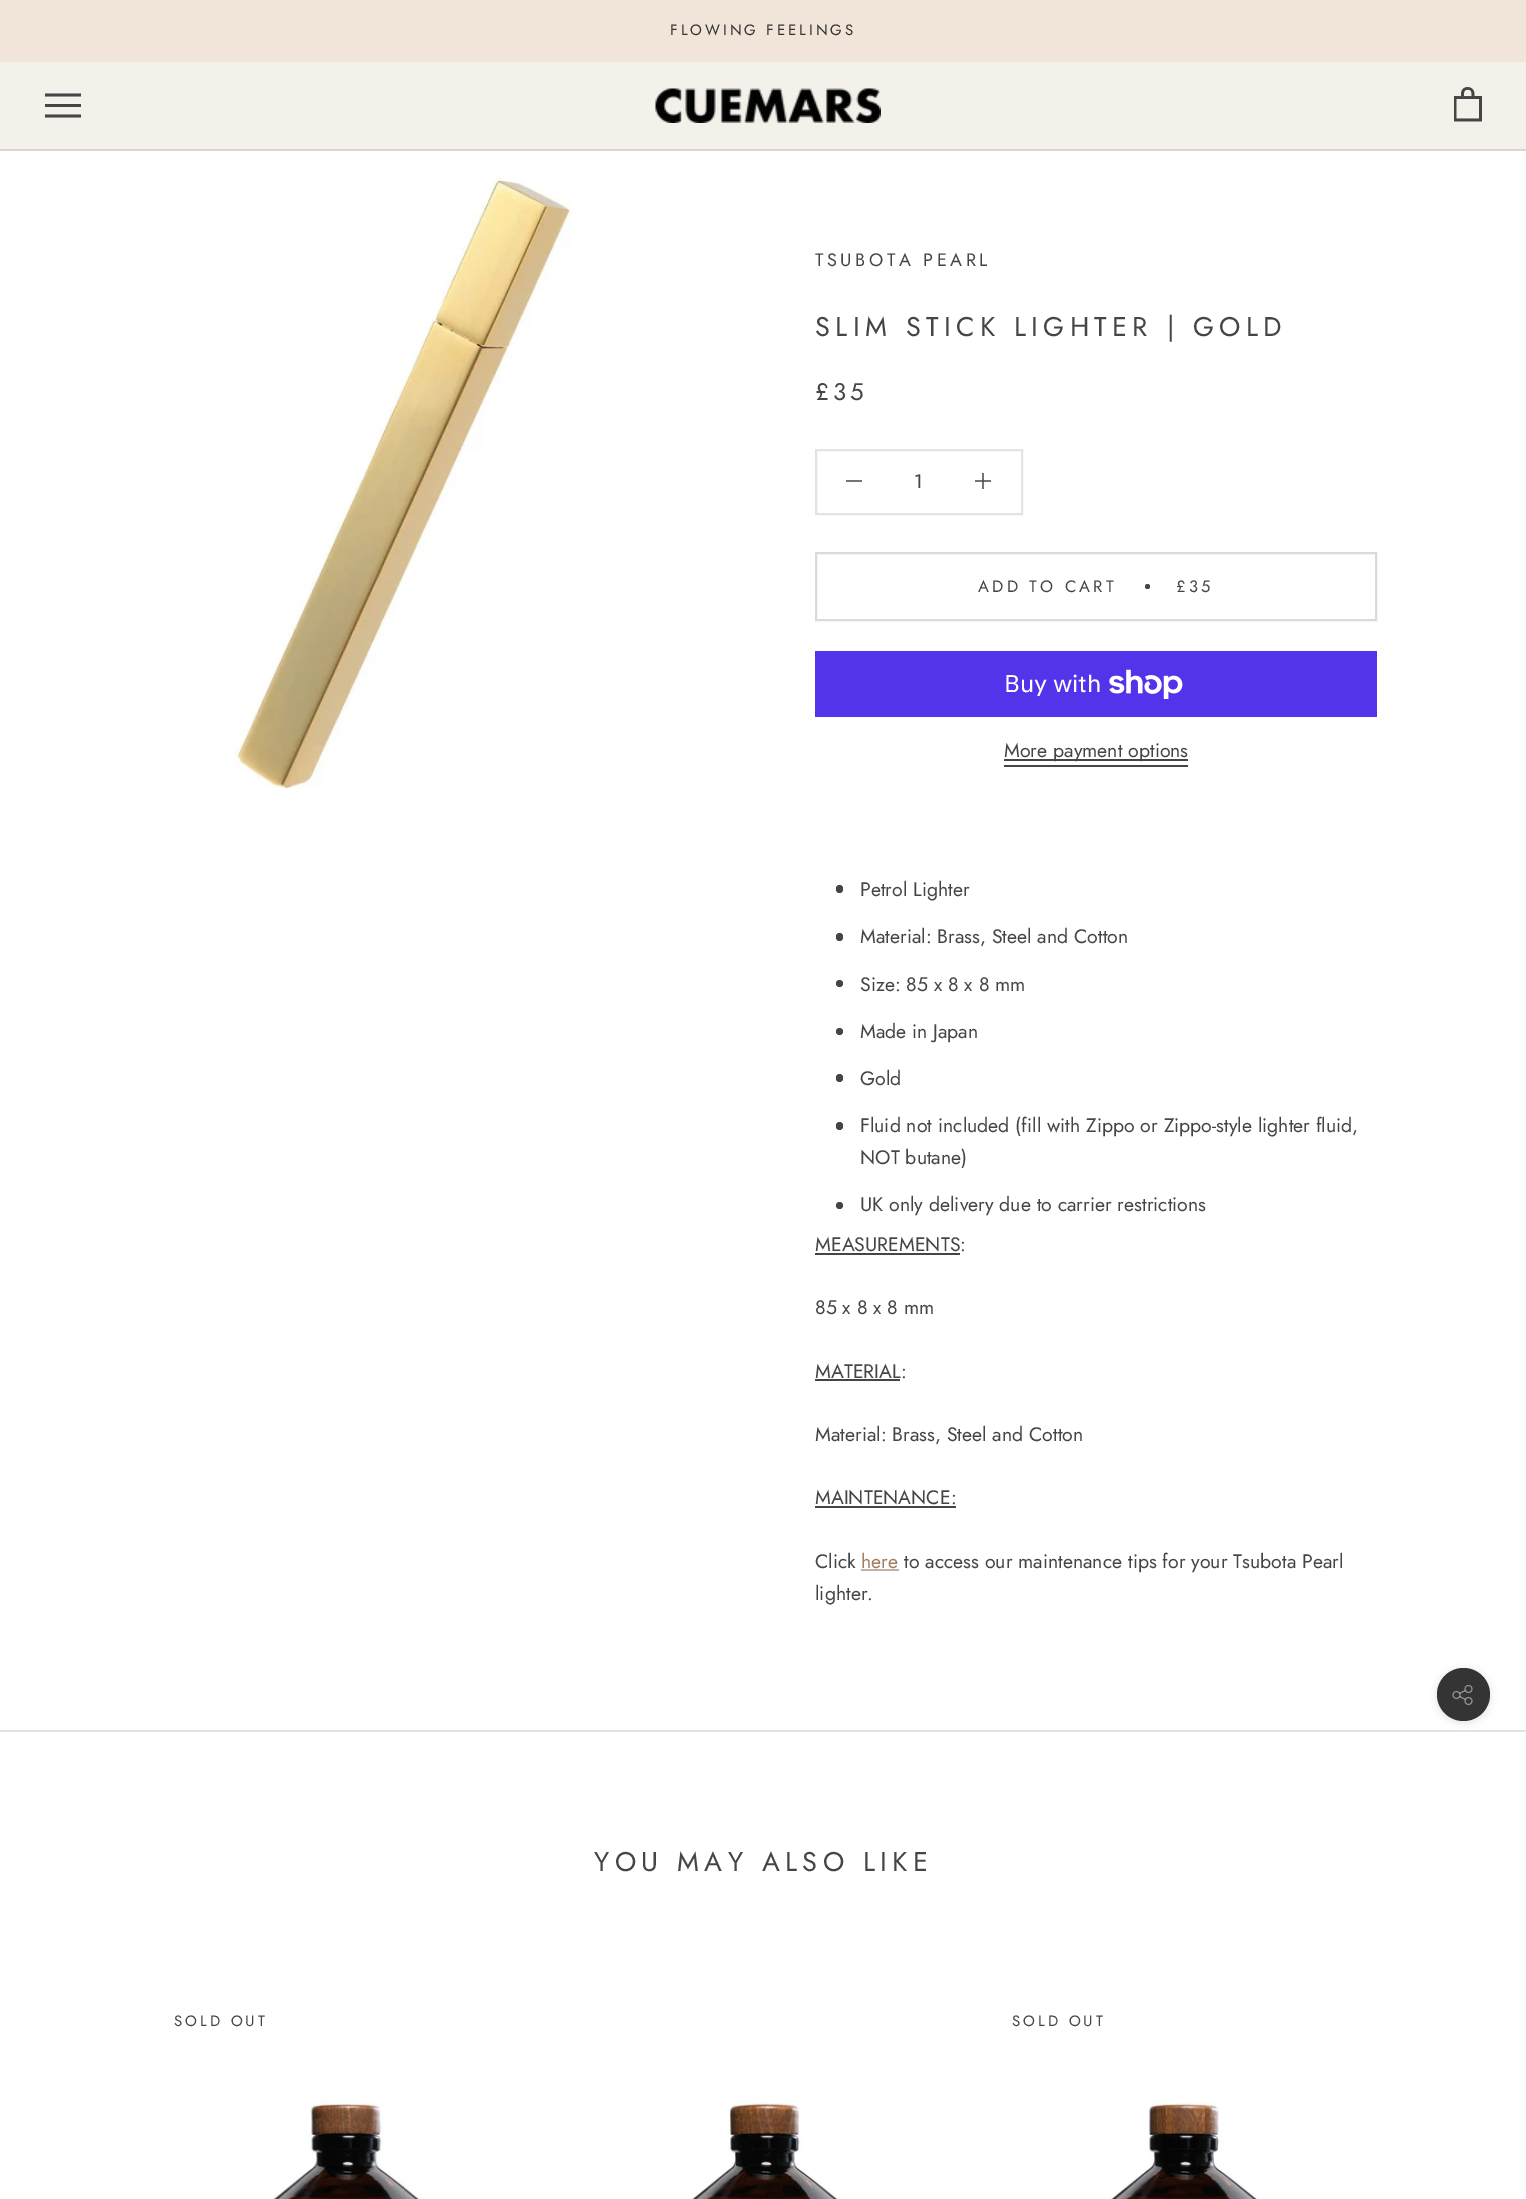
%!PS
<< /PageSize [1526 2199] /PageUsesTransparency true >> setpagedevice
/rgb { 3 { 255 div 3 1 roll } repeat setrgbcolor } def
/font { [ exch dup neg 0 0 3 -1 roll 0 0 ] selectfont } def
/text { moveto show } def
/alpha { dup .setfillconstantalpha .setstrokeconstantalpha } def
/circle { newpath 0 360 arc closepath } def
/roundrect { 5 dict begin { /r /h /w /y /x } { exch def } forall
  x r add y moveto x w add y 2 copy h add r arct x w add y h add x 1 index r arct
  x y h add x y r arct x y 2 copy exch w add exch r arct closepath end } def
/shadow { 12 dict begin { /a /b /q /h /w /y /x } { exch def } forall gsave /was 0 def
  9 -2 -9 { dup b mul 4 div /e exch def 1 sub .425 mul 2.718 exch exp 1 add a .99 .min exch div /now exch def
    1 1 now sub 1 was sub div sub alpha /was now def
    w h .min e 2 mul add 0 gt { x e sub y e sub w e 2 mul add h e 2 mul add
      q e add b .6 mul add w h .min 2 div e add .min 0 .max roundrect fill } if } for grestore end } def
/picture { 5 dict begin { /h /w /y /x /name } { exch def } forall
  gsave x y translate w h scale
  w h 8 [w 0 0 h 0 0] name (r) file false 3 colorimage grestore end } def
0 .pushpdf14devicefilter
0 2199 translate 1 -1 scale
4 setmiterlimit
255 255 255 rgb
0 0 1526 2199 rectfill
116 116 116 rgb
975 480 16 2 rectfill
241 228 216 rgb
0 0 1526 62 rectfill
244 240 234 rgb
0 62 1526 87 rectfill
218 214 209 rgb
0 149 1526 2 rectfill
69 69 69 rgb
45 117.5 moveto 0 -3 rlineto 36 0 rlineto 0 3 rlineto closepath 45 104 moveto 36 0 rlineto 0 3 rlineto -36 0 rlineto closepath 45 93.5 moveto 36 0 rlineto 0 3 rlineto -36 0 rlineto closepath fill
(img_01.rgb) 655 88 226 35 picture
(img_02.rgb) 1454 87 28 35 picture
(img_03.rgb) 234 178 338 611 picture
227 227 227 rgb
2 setlinewidth
816 450 206 64 rectstroke
116 116 116 rgb
846 480 16 2 rectfill
982 473 2 16 rectfill
81 81 81 rgb
982 480 2 2 rectfill
218 218 218 rgb
816 553 560 67 rectstroke
69 69 69 rgb
1147.5 586.5 2.5 circle fill
84 51 235 rgb
815 651 562 66 rectfill
(img_04.rgb) 1109 669 74 30 picture
69 69 69 rgb
1004 759 184 2 rectfill
1004 765 184 2 rectfill
836 885 7 8 3.5 roundrect fill
836 933 7 8 3.5 roundrect fill
839.5 983.5 3.5 circle fill
839.5 1031.5 3.5 circle fill
836 1074 7 8 3.5 roundrect fill
836 1122 7 8 3.5 roundrect fill
839.5 1205.5 3.5 circle fill
815 1253 145 2 rectfill
815 1379 85 2 rectfill
815 1506 141 2 rectfill
199 176 158 rgb
861 1569 38 2 rectfill
227 227 227 rgb
0 1730 1526 2 rectfill
54 54 54 rgb
1437 1670 53 52 26 4 0.15 shadow
52 52 52 rgb
1463.5 1694.5 26.5 circle fill
(img_05.rgb) 1452 1685 21 21 picture
(img_06.rgb) 273 2099 147 100 picture
(img_07.rgb) 1111 2099 146 100 picture
(img_08.rgb) 692 2101 149 98 picture
/Jost-Regular 15 font
670 35 moveto 3 0 (FLOWING FEELINGS) ashow
/Jost-Regular 18 font
69 69 69 rgb
815 266 moveto 3.6 0 (TSUBOTA PEARL) ashow
/Jost-Regular 27 font
815 336 moveto 5.4 0 (SLIM STICK LIGHTER | GOLD) ashow
/Jost-Regular 24 font
815 400 moveto 4 0 (£35) ashow
/Jost-Regular 19.5 font
(1) 914 488 text
/Jost-Regular 16.5 font
978 592 moveto 3.25 0 (ADD TO CART) ashow
1176 592 moveto 3.25 0 (£35) ashow
/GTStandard-Regular 24 font
255 255 255 rgb
(Buy with) 1004 692 text
/Jost-Regular 19.5 font
69 69 69 rgb
(More payment options) 1004 757 text
(Petrol Lighter) 860 896 text
(Material: Brass, Steel and Cotton) 860 943 text
(Size: 85 x 8 x 8 mm) 860 991 text
(Made in Japan) 860 1038 text
(Gold) 860 1085 text
(Fluid not included \(fill with Zippo or Zippo-style lighter fluid,) 860 1132 text
(NOT butane\)) 860 1164 text
(UK only delivery due to carrier restrictions) 860 1211 text
(MEASUREMENTS:) 815 1251 text
(85 x 8 x 8 mm) 815 1314 text
(MATERIAL:) 815 1378 text
(Material: Brass, Steel and Cotton) 815 1441 text
(MAINTENANCE:) 815 1504 text
(Click) 815 1568 text
161 124 94 rgb
(here) 861 1568 text
69 69 69 rgb
(to access our maintenance tips for your Tsubota Pearl) 904 1568 text
(lighter.) 815 1600 text
/Jost-Regular 27 font
594 1871 moveto 5.4 0 (YOU MAY ALSO LIKE) ashow
/Jost-Regular 15 font
174 2026 moveto 3 0 (SOLD OUT) ashow
1012 2026 moveto 3 0 (SOLD OUT) ashow
.poppdf14devicefilter showpage
